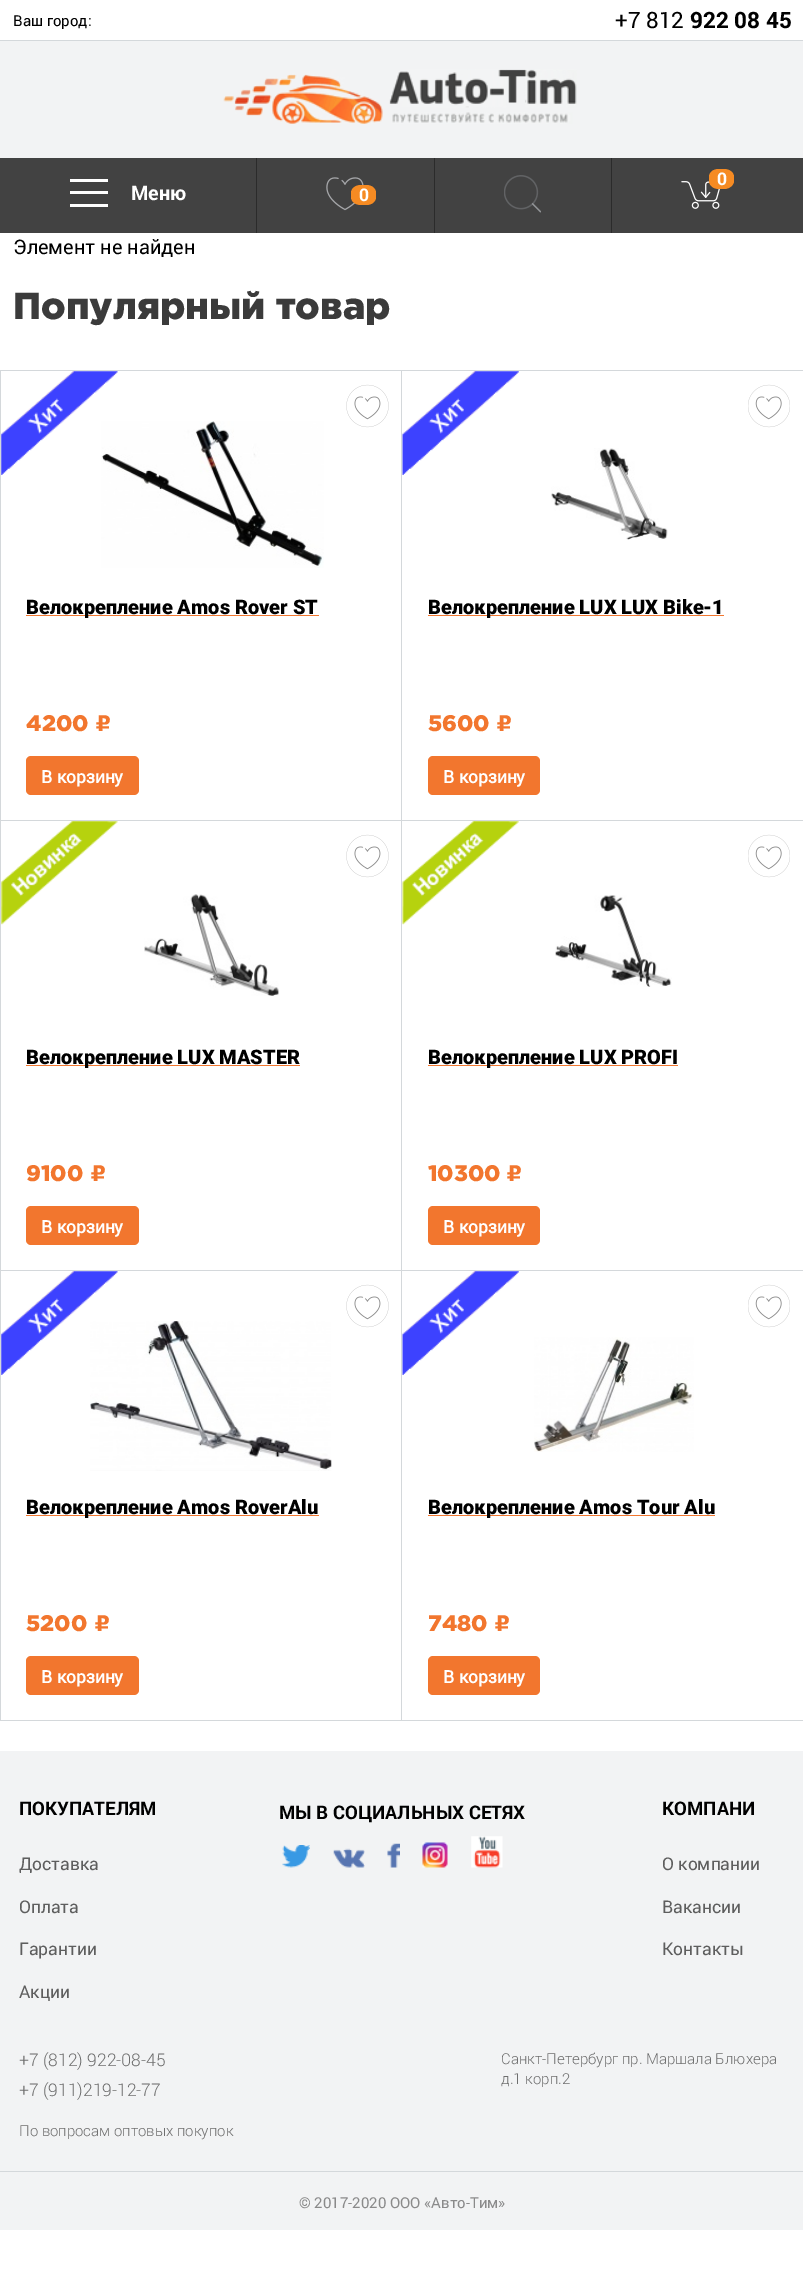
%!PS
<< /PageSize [803 2269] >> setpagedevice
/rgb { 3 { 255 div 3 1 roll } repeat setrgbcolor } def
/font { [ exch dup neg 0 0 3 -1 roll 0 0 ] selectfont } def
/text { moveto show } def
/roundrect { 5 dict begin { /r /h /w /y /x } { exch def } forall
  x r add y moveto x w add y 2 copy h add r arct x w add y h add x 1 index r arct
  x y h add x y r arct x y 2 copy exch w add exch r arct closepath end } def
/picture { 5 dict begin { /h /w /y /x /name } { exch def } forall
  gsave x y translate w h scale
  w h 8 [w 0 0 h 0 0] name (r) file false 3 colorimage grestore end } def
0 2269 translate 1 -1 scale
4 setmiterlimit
255 255 255 rgb
0 0 803 2269 rectfill
212 216 219 rgb
0 40 803 1 rectfill
242 243 244 rgb
0 41 803 117 rectfill
(img_01.rgb) 223 69 354 55 picture
66 66 66 rgb
0 158 803 75 rectfill
43 43 43 rgb
434 158 1 75 rectfill
(img_02.rgb) 504 175 37 38 picture
611 158 1 75 rectfill
(img_03.rgb) 681 181 39 28 picture
246 139 35 rgb
719 169 moveto 5 0 rlineto 5.5 0 10 3.5 10 8 rcurveto 0 4 rlineto 0 4 -4.5 8 -10 8 rcurveto -5 0 rlineto -6 0 -10 -4 -10 -8 rcurveto 0 -4 rlineto 0 -4.5 4 -8 10 -8 rcurveto closepath fill
255 255 255 rgb
70 179 38 3 rectfill
70 191 38 3 rectfill
70 204 38 3 rectfill
43 43 43 rgb
256 158 1 75 rectfill
(img_04.rgb) 326 177 38 34 picture
246 139 35 rgb
361 185 moveto 5 0 rlineto 6 0 10 3.5 10 8 rcurveto 0 4 rlineto 0 4.5 -4 8 -10 8 rcurveto -5 0 rlineto -5.5 0 -10 -3.5 -10 -8 rcurveto 0 -4 rlineto 0 -4.5 4.5 -8 10 -8 rcurveto closepath fill
212 216 219 rgb
0 370 803 1 rectfill
0 370 1 1351 rectfill
401 371 1 1350 rectfill
1 820 802 1 rectfill
(img_07.rgb) 101 421 223 147 picture
(img_05.rgb) 1 371 117 104 picture
(img_06.rgb) 346 384 43 44 picture
242 118 46 rgb
26 615 293 1 rectfill
26 756 113 39 5 roundrect fill
(img_08.rgb) 402 371 117 104 picture
(img_09.rgb) 748 384 42 44 picture
(img_10.rgb) 551 448 117 92 picture
428 615 296 1 rectfill
428 756 112 39 5 roundrect fill
212 216 219 rgb
1 1270 802 1 rectfill
(img_11.rgb) 1 821 117 104 picture
(img_06.rgb) 346 834 43 44 picture
(img_12.rgb) 144 894 135 102 picture
242 118 46 rgb
26 1065 274 1 rectfill
26 1206 113 39 5 roundrect fill
(img_13.rgb) 402 821 117 104 picture
(img_09.rgb) 748 834 42 44 picture
(img_14.rgb) 555 895 117 92 picture
428 1065 250 1 rectfill
428 1206 112 39 5 roundrect fill
212 216 219 rgb
1 1720 802 1 rectfill
(img_16.rgb) 90 1321 242 150 picture
(img_15.rgb) 1 1271 117 104 picture
(img_06.rgb) 346 1284 43 44 picture
242 118 46 rgb
26 1515 293 1 rectfill
26 1656 113 39 5 roundrect fill
(img_08.rgb) 402 1271 117 104 picture
(img_09.rgb) 748 1284 42 44 picture
(img_17.rgb) 534 1337 160 115 picture
428 1515 287 1 rectfill
428 1656 112 39 5 roundrect fill
242 243 244 rgb
0 1751 803 479 rectfill
(img_18.rgb) 282 1845 28 23 picture
(img_19.rgb) 333 1848 32 20 picture
(img_20.rgb) 387 1843 13 25 picture
(img_21.rgb) 422 1842 26 26 picture
(img_22.rgb) 471 1836 32 32 picture
212 216 219 rgb
0 2171 803 1 rectfill
/Roboto-Regular 15 font
0 0 0 rgb
(Ваш город:) 13 26 text
/Roboto-Regular 22.5 font
(+7 812) 615 28 text
/Roboto-Bold 22.5 font
(922 08 45) 690 28 text
/Roboto-Bold 17.5 font
255 255 255 rgb
(0) 717 185 text
/Roboto-Bold 20 font
(Меню) 131 200 text
/Roboto-Bold 17.5 font
(0) 359 201 text
/Roboto-Regular 20 font
0 0 0 rgb
(Элемент не найден) 13 254 text
/Gotham-Black 37.5 font
59 59 59 rgb
(Популярный товар) 13 319 text
/Roboto-Black 20 font
0 0 0 rgb
(Велокрепление Amos Rover ST) 26 614 text
/Gotham-Black 22.5 font
242 118 46 rgb
(4200) 26 731 text
/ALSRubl-Regular 22.5 font
(u) 95 731 text
/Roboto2-Bold 17.5 font
255 255 255 rgb
(В корзину) 41 783 text
/Roboto-Black 20 font
0 0 0 rgb
(Велокрепление LUX LUX Bike-1) 428 614 text
/Gotham-Black 22.5 font
242 118 46 rgb
(5600) 428 731 text
/ALSRubl-Regular 22.5 font
(u) 496 731 text
/Roboto2-Bold 17.5 font
255 255 255 rgb
(В корзину) 443 783 text
/Roboto-Black 20 font
0 0 0 rgb
(Велокрепление LUX MASTER) 26 1064 text
/Gotham-Black 22.5 font
242 118 46 rgb
(9100) 26 1181 text
/ALSRubl-Regular 22.5 font
(u) 90 1181 text
/Roboto2-Bold 17.5 font
255 255 255 rgb
(В корзину) 41 1233 text
/Roboto-Black 20 font
0 0 0 rgb
(Велокрепление LUX PROFI) 428 1064 text
/Gotham-Black 22.5 font
242 118 46 rgb
(10300) 428 1181 text
/ALSRubl-Regular 22.5 font
(u) 506 1181 text
/Roboto2-Bold 17.5 font
255 255 255 rgb
(В корзину) 443 1233 text
/Roboto-Black 20 font
0 0 0 rgb
(Велокрепление Amos RoverAlu) 26 1514 text
/Gotham-Black 22.5 font
242 118 46 rgb
(5200) 26 1631 text
/ALSRubl-Regular 22.5 font
(u) 94 1631 text
/Roboto2-Bold 17.5 font
255 255 255 rgb
(В корзину) 41 1683 text
/Roboto-Black 20 font
0 0 0 rgb
(Велокрепление Amos Tour Alu) 428 1514 text
/Gotham-Black 22.5 font
242 118 46 rgb
(7480) 428 1631 text
/ALSRubl-Regular 22.5 font
(u) 494 1631 text
/Roboto2-Bold 17.5 font
255 255 255 rgb
(В корзину) 443 1683 text
/Roboto-Bold 18.75 font
0 0 0 rgb
(ПОКУПАТЕЛЯМ) 19 1815 text
/Roboto-Regular 17.5 font
94 94 94 rgb
(Доставка) 19 1870 text
(Оплата) 19 1913 text
(Гарантии) 19 1955 text
(Акции) 19 1998 text
/Roboto-Bold 18.75 font
0 0 0 rgb
(КОМПАНИ) 662 1815 text
/Roboto-Regular 17.5 font
94 94 94 rgb
(О компании) 662 1870 text
(Вакансии) 662 1913 text
(Контакты) 662 1955 text
/Roboto-Bold 18.75 font
0 0 0 rgb
(МЫ В СОЦИАЛЬНЫХ СЕТЯХ) 279 1819 text
/Roboto-Light 17.5 font
110 110 110 rgb
(+7 \(812\) 922-08-45) 19 2066 text
(+7 \(911\)219-12-77) 19 2096 text
/Roboto-Light 15 font
(По вопросам оптовых покупок) 19 2136 text
(Cанкт-Петербург пр. Маршала Блюхера) 501 2064 text
(д.1 корп.2) 501 2084 text
/Roboto-Regular 15 font
138 138 138 rgb
(© 2017-2020 ООО «Авто-Тим») 299 2208 text
showpage
